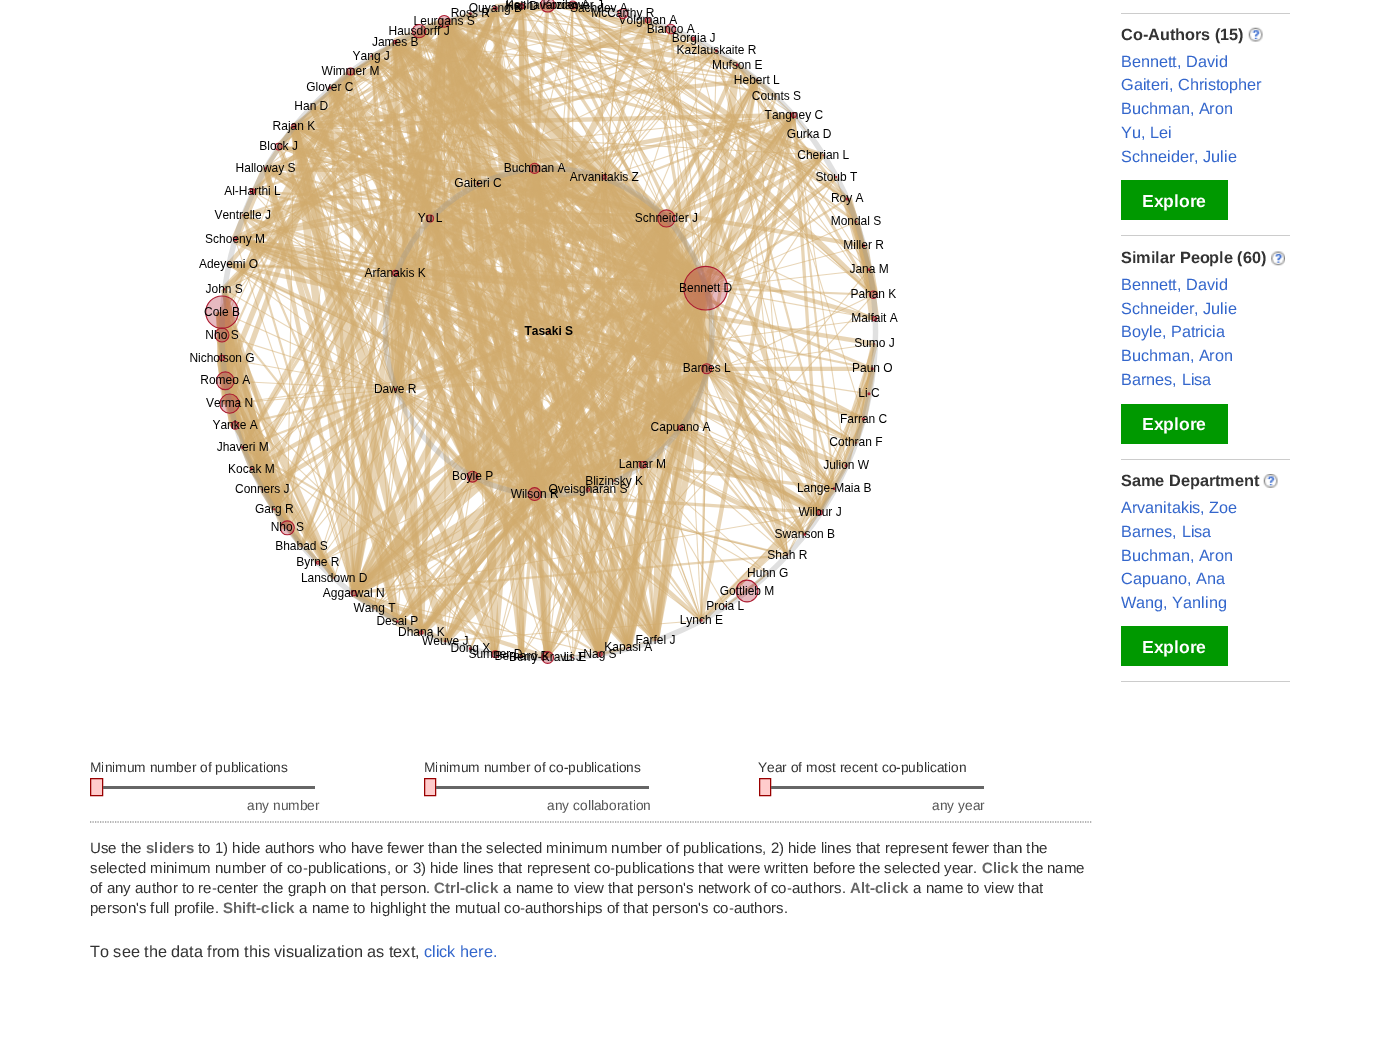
%!PS
<< /PageSize [1389 1052] >> setpagedevice
/rgb { 3 { 255 div 3 1 roll } repeat setrgbcolor } def
/font { [ exch dup neg 0 0 3 -1 roll 0 0 ] selectfont } def
/text { moveto show } def
/picture { 5 dict begin { /h /w /y /x /name } { exch def } forall
  gsave x y translate w h scale
  w h 8 [w 0 0 h 0 0] name (r) file false 3 colorimage grestore end } def
0 1052 translate 1 -1 scale
4 setmiterlimit
255 255 255 rgb
0 0 1389 1052 rectfill
204 204 204 rgb
1121 13 169 1 rectfill
(img_01.rgb) 1248 27 15 15 picture
0 153 0 rgb
1121 180 107 40 rectfill
204 204 204 rgb
1121 235 169 1 rectfill
(img_02.rgb) 1271 251 14 15 picture
0 153 0 rgb
1121 404 107 40 rectfill
204 204 204 rgb
1121 459 169 1 rectfill
(img_03.rgb) 1263 474 15 14 picture
0 153 0 rgb
1121 626 107 40 rectfill
204 204 204 rgb
1121 681 169 1 rectfill
(img_04.rgb) 190 0 708 664 picture
255 204 204 rgb
90.5 778.5 moveto 12 0 rlineto 0 17 rlineto -12 0 rlineto closepath gsave fill grestore
153 0 0 rgb
stroke
102 102 102 rgb
103 786 212 3 rectfill
255 204 204 rgb
424.5 778.5 moveto 11 0 rlineto 0 17 rlineto -11 0 rlineto closepath gsave fill grestore
153 0 0 rgb
stroke
102 102 102 rgb
436 786 213 3 rectfill
255 204 204 rgb
759.5 778.5 moveto 11 0 rlineto 0 17 rlineto -11 0 rlineto closepath gsave fill grestore
153 0 0 rgb
stroke
102 102 102 rgb
771 786 213 3 rectfill
153 153 153 rgb
1.2 setlinewidth
[1.25 1.25] 0 setdash
90 822 moveto 1002.5 0 rlineto stroke
/LiberationSans-Bold 16.25 font
51 51 51 rgb
(Co-Authors \(15\)) 1121 40 text
/LiberationSans-Regular 16.25 font
51 102 204 rgb
(Bennett, David) 1121 67 text
(Gaiteri, Christopher) 1121 90 text
(Buchman, Aron) 1121 114 text
(Yu, Lei) 1121 138 text
(Schneider, Julie) 1121 162 text
/LiberationSans-Bold 17.5 font
255 255 255 rgb
(Explore) 1142 207 text
/LiberationSans-Bold 16.25 font
51 51 51 rgb
(Similar People \(60\)) 1121 263 text
/LiberationSans-Regular 16.25 font
51 102 204 rgb
(Bennett, David) 1121 290 text
(Schneider, Julie) 1121 314 text
(Boyle, Patricia) 1121 337 text
(Buchman, Aron) 1121 361 text
(Barnes, Lisa) 1121 385 text
/LiberationSans-Bold 17.5 font
255 255 255 rgb
(Explore) 1142 430 text
/LiberationSans-Bold 16.25 font
51 51 51 rgb
(Same Department) 1121 486 text
/LiberationSans-Regular 16.25 font
51 102 204 rgb
(Arvanitakis, Zoe) 1121 513 text
(Barnes, Lisa) 1121 537 text
(Buchman, Aron) 1121 561 text
(Capuano, Ana) 1121 584 text
(Wang, Yanling) 1121 608 text
/LiberationSans-Bold 17.5 font
255 255 255 rgb
(Explore) 1142 653 text
/LiberationSans-Regular 13.75 font
51 51 51 rgb
(Minimum number of publications) 90 772 text
(Minimum number of co-publications) 424 772 text
(Year of most recent co-publication) 758 772 text
85 85 85 rgb
(any number) 247 810 text
(any collaboration) 547 810 text
(any year) 932 810 text
/LiberationSans-Regular 15 font
51 51 51 rgb
(Use the) 90 853 text
/LiberationSans-Bold 15 font
102 102 102 rgb
(sliders) 146 853 text
/LiberationSans-Regular 15 font
51 51 51 rgb
(to 1\) hide authors who have fewer than the selected minimum number of publications, 2\) hide lines that represent fewer than the) 198 853 text
(selected minimum number of co-publications, or 3\) hide lines that represent co-publications that were written before the selected year.) 90 873 text
/LiberationSans-Bold 15 font
102 102 102 rgb
(Click) 982 873 text
/LiberationSans-Regular 15 font
51 51 51 rgb
(the name) 1022 873 text
(of any author to re-center the graph on that person.) 90 893 text
/LiberationSans-Bold 15 font
102 102 102 rgb
(Ctrl-click) 434 893 text
/LiberationSans-Regular 15 font
51 51 51 rgb
(a name to view that person's network of co-authors.) 503 893 text
/LiberationSans-Bold 15 font
102 102 102 rgb
(Alt-click) 850 893 text
/LiberationSans-Regular 15 font
51 51 51 rgb
(a name to view that) 913 893 text
(person's full profile.) 90 913 text
/LiberationSans-Bold 15 font
102 102 102 rgb
(Shift-click) 223 913 text
/LiberationSans-Regular 15 font
51 51 51 rgb
(a name to highlight the mutual co-authorships of that person's co-authors.) 299 913 text
/LiberationSans-Regular 16.25 font
(To see the data from this visualization as text,) 90 957 text
51 102 204 rgb
(click here.) 424 957 text
showpage
